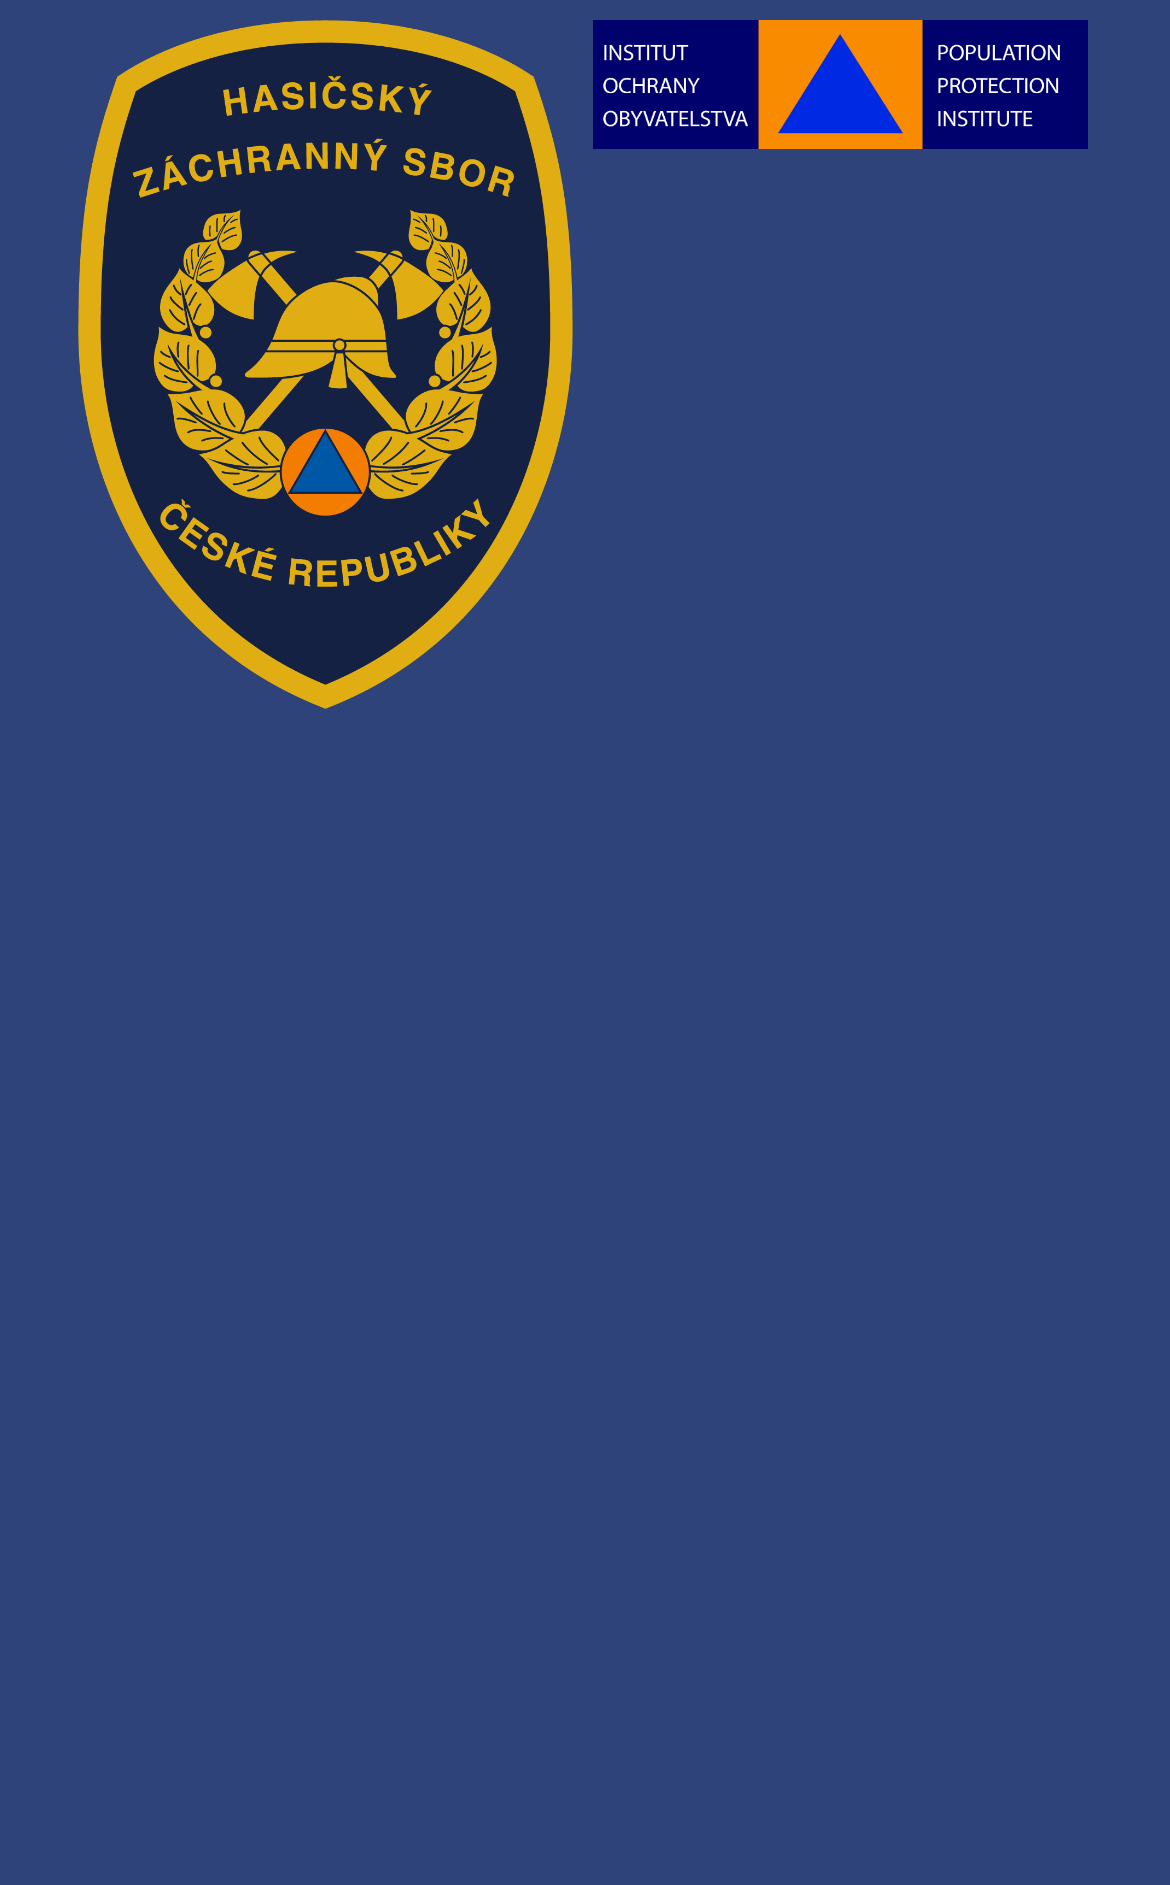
%!PS
<< /PageSize [1170 1885] >> setpagedevice
/rgb { 3 { 255 div 3 1 roll } repeat setrgbcolor } def
/picture { 5 dict begin { /h /w /y /x /name } { exch def } forall
  gsave x y translate w h scale
  w h 8 [w 0 0 h 0 0] name (r) file false 3 colorimage grestore end } def
0 1885 translate 1 -1 scale
4 setmiterlimit
45 67 121 rgb
0 0 1170 1885 rectfill
(img_01.rgb) 78 20 495 689 picture
(img_02.rgb) 593 20 495 129 picture
showpage
